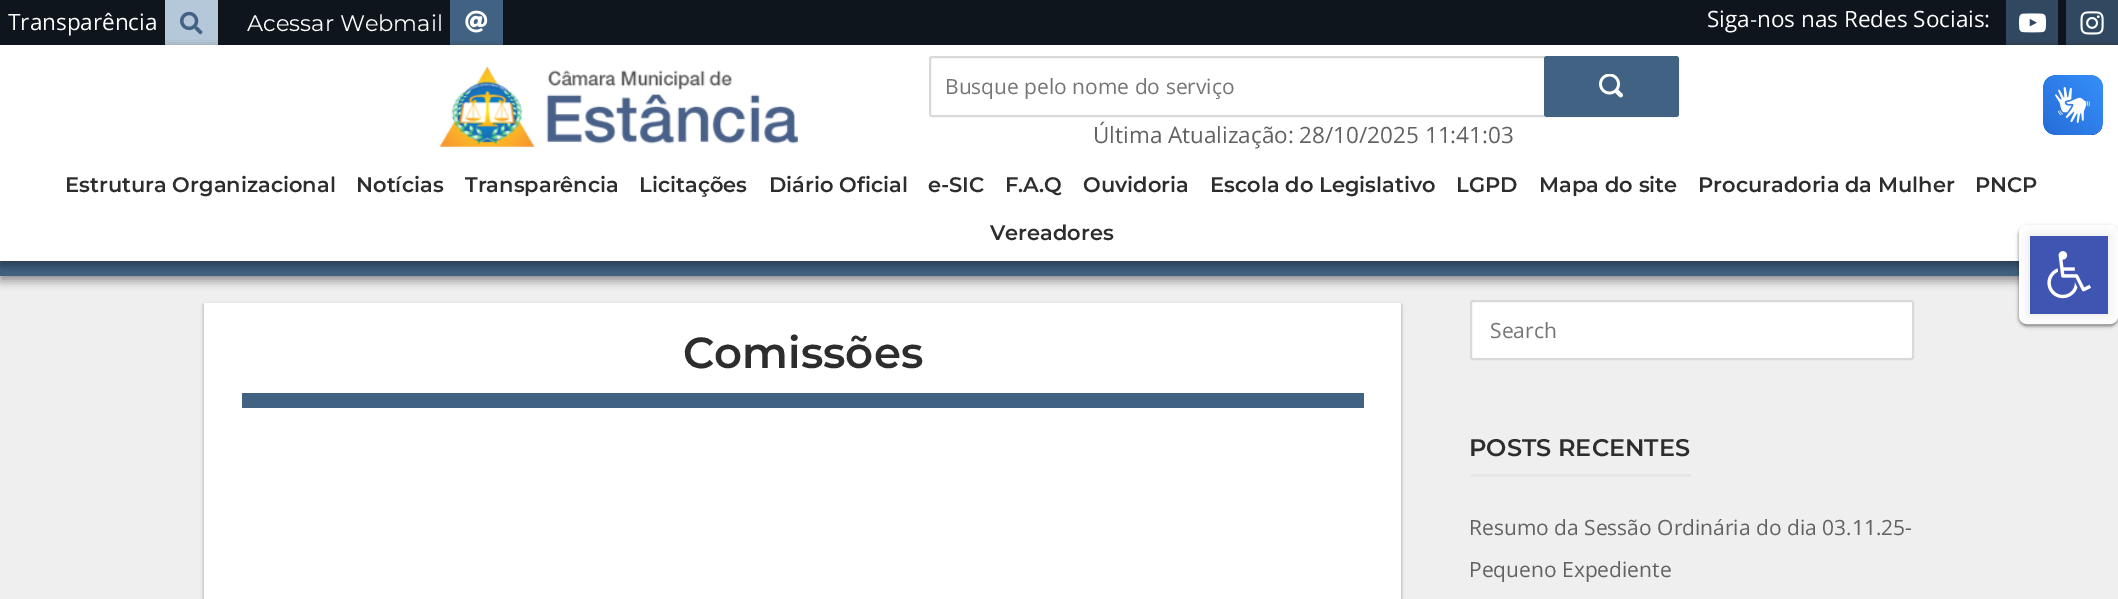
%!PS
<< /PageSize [2118 599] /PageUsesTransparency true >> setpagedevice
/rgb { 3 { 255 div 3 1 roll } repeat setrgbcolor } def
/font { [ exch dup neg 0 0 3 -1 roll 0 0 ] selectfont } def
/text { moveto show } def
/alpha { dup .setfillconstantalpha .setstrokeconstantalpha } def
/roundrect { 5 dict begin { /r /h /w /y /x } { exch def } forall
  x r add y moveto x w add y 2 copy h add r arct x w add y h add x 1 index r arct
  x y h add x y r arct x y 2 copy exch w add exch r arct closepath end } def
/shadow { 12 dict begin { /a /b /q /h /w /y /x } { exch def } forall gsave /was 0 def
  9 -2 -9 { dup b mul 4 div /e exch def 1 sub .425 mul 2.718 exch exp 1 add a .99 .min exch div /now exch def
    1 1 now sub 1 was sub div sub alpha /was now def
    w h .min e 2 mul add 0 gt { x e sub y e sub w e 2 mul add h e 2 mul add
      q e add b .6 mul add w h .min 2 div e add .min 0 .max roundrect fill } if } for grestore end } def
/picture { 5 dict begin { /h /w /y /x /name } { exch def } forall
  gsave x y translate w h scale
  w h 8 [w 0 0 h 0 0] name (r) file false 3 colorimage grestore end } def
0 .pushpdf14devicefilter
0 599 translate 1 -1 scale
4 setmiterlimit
239 239 239 rgb
0 0 2118 599 rectfill
14 21 28 rgb
0 0 2066 45 rectfill
181 200 218 rgb
165 0 53 45 rectfill
(img_01.rgb) 180 11 23 24 picture
65 98 130 rgb
450 0 53 45 rectfill
(img_02.rgb) 465 10 23 23 picture
48 72 96 rgb
2006 0 52 45 rectfill
(img_03.rgb) 2019 13 27 20 picture
2066 0 52 45 rectfill
(img_04.rgb) 2080 11 24 24 picture
230 230 230 rgb
0 276 2019 2 rectfill
0 0 0 rgb
0 50 2118 231 0 4.5 0.23 shadow
0 50 2118 231 0 4.5 0.16 shadow
65 98 130 rgb
0 261 2019 15 rectfill
0 0 0 rgb
0 50 2118 216 0 4.5 0.23 shadow
0 50 2118 216 0 4.5 0.16 shadow
255 255 255 rgb
0 45 2118 216 rectfill
(img_05.rgb) 439 66 359 81 picture
217 217 217 rgb
2 setlinewidth
930 57 748 59 2 roundrect stroke
65 98 130 rgb
1544 56 135 61 3 roundrect fill
(img_06.rgb) 1599 74 24 24 picture
0 0 0 rgb
204 305 1197 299 0 1.5 0.24 shadow
204 305 1197 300 0 2 0.12 shadow
255 255 255 rgb
204 303 1197 296 rectfill
65 98 130 rgb
242 393 1122 15 rectfill
255 255 255 rgb
1471 301 442 58 2 roundrect gsave fill grestore
217 217 217 rgb
stroke
230 230 230 rgb
1470 474 221 3 rectfill
(img_07.rgb) 2043 75 60 60 picture
(img_08.rgb) 2043 75 60 60 picture
0 0 0 rgb
2019 227 99 99 8 1.5 0.4 shadow
2019 227 99 99 8 2 0.12 shadow
255 255 255 rgb
11 setlinewidth
2024.5 230.5 88 88 2.5 roundrect stroke
0 0 0 rgb
2030 236 78 78 0 7.5 0.1 shadow
64 84 178 rgb
2030 236 78 78 rectfill
(img_09.rgb) 2047 251 44 48 picture
/OpenSans-Regular 22.5 font
255 255 255 rgb
(Transparência) 8 30 text
/Montserrat-Regular 22.5 font
(Acessar Webmail) 247 31 text
/OpenSans-Regular 22.5 font
(Siga-nos nas Redes Sociais:) 1707 27 text
/OpenSans-Regular 21 font
117 117 117 rgb
(Busque pelo nome do serviço) 945 94 text
/OpenSans-Regular 22.5 font
98 98 98 rgb
(Última Atualização: 28/10/2025 11:41:03) 1093 143 text
/Montserrat-SemiBold 21 font
45 45 45 rgb
(Estrutura Organizacional) 65 192 text
(Notícias) 356 192 text
(Transparência) 465 192 text
(Licitações) 639 192 text
(Diário Oficial) 769 192 text
(e-SIC) 928 192 text
(F.A.Q) 1005 192 text
(Ouvidoria) 1083 192 text
(Escola do Legislativo) 1210 192 text
(LGPD) 1456 192 text
(Mapa do site) 1539 192 text
(Procuradoria da Mulher) 1698 192 text
(PNCP) 1975 192 text
(Vereadores) 990 240 text
/Montserrat-SemiBold 43.5 font
(Comissões) 683 368 text
/OpenSans-Regular 21 font
117 117 117 rgb
(Search) 1490 338 text
/Montserrat-SemiBold 24 font
45 45 45 rgb
(POSTS RECENTES) 1469 456 text
/OpenSans-Regular 21 font
98 98 98 rgb
(Resumo da Sessão Ordinária do dia 03.11.25-) 1469 535 text
(Pequeno Expediente) 1469 577 text
.poppdf14devicefilter showpage
